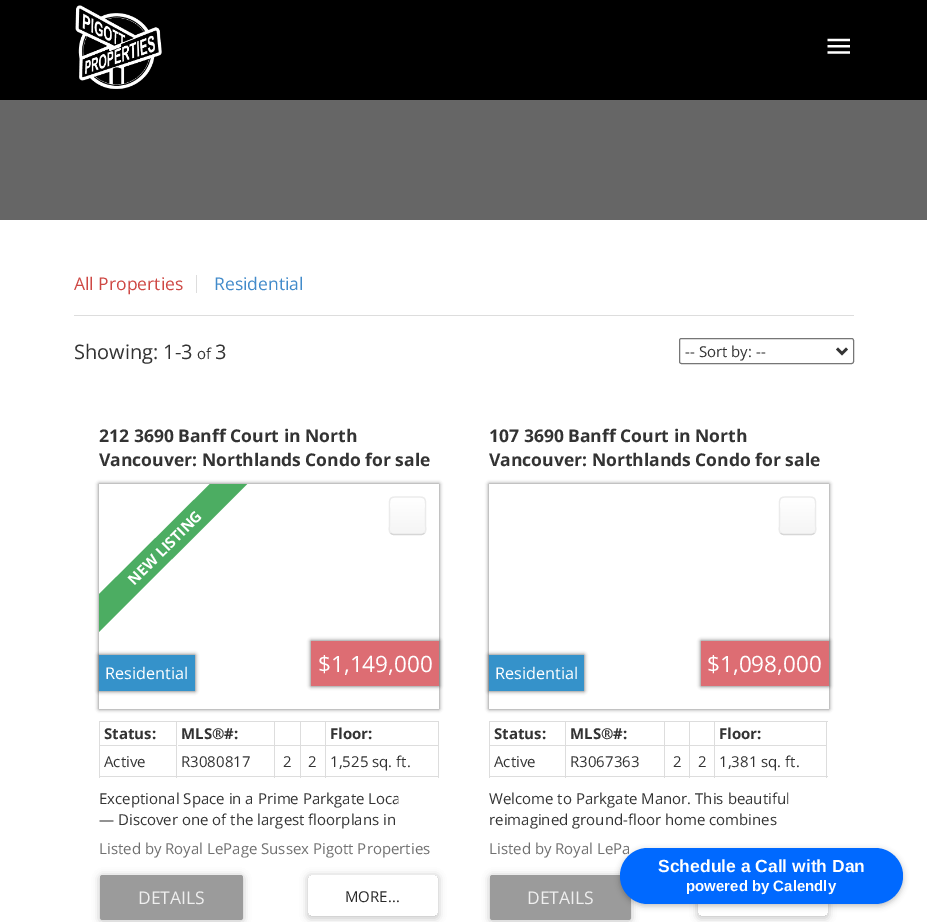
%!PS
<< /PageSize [927 922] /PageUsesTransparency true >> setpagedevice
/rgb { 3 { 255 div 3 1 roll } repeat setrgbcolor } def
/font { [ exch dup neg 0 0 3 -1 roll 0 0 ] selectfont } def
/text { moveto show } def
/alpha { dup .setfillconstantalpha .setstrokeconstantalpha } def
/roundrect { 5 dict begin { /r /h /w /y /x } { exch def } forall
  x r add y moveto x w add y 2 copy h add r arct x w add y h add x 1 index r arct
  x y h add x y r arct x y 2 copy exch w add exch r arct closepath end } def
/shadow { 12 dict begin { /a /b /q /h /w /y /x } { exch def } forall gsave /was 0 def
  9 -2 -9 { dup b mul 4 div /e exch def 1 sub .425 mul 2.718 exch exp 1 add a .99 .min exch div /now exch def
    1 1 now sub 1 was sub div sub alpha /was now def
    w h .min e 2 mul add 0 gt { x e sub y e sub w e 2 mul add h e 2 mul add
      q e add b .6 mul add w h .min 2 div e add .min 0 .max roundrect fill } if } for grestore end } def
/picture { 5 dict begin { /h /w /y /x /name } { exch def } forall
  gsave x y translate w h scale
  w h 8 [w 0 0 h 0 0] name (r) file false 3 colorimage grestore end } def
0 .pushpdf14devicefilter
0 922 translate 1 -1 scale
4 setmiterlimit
255 255 255 rgb
0 0 927 922 rectfill
0 0 0 rgb
0 0 927 100 rectfill
(img_01.rgb) 75 5 87 84 picture
(img_02.rgb) 827 38 23 16 picture
102 102 102 rgb
0 100 927 120 rectfill
221 221 221 rgb
196 275 1 18 rectfill
74 315 780 1 rectfill
118 118 118 rgb
679.5 338.5 174 25 2 roundrect stroke
51 51 51 rgb
2.5 setlinewidth
837 348.5 moveto 5 5 rlineto 5 -5 rlineto stroke
gsave
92 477 moveto 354 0 rlineto 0 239 rlineto -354 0 rlineto closepath 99 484 moveto 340 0 rlineto 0 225 rlineto -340 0 rlineto closepath eoclip newpath
102 102 102 rgb
99 484 340 225 0 2 1 shadow
grestore
gsave
99 484 340 225 rectclip
76 173 98 rgb
78 615 moveto 155 -154 rlineto 19 18 rlineto -155 155 rlineto closepath fill
grestore
gsave
389 496 37 39 5 roundrect clip newpath
gsave 389 498 moveto 37 0 rlineto 0 36 rlineto -37 0 rlineto closepath clip newpath
<< /ShadingType 2 /ColorSpace /DeviceRGB /Coords [408 498 408 534] /Extend [true true] /Function << /FunctionType 2 /Domain [0 1] /C0 [1 1 1] /C1 [0.961 0.961 0.961] /N 1 >> >> shfill grestore
grestore
214 214 214 rgb
1.2 setlinewidth
424.5 533 moveto -1 1 -2 1.5 -3.5 1.5 rcurveto -27 0 rlineto -1.5 0 -2.5 -0.5 -3.5 -1.5 rcurveto stroke
235 235 235 rgb
390.5 533 moveto -2 -2 -1 -5.5 -1 -8 rcurveto 0 -9.5 rlineto 0 -21 -3 -18.5 18 -18.5 rcurveto 21 0 18 -2.5 18 18.5 rcurveto 0 9.5 rlineto 0 2.5 1 6 -1 8 rcurveto stroke
51 51 51 rgb
99 655 96 36 0 2 0.8 shadow
53 146 202 rgb
99 655 96 36 rectfill
gsave
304 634 moveto 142 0 rlineto 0 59 rlineto -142 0 rlineto closepath 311 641 moveto 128 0 rlineto 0 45 rlineto -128 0 rlineto closepath eoclip newpath
51 51 51 rgb
311 641 128 45 0 2 0.8 shadow
grestore
0.8 alpha
212 73 80 rgb
311 641 128 45 rectfill
1 alpha
221 221 221 rgb
325 721 114 1 rectfill
438 721 1 57 rectfill
325 776 114 1 rectfill
325 721 1 57 rectfill
300 721 26 1 rectfill
300 776 26 1 rectfill
300 721 1 57 rectfill
274 721 27 1 rectfill
274 776 27 1 rectfill
274 721 1 57 rectfill
176 721 99 1 rectfill
176 776 99 1 rectfill
176 721 1 57 rectfill
99 721 79 1 rectfill
99 776 79 1 rectfill
99 721 1 57 rectfill
100 745 76 1 rectfill
178 745 96 1 rectfill
275 745 25 1 rectfill
301 745 24 1 rectfill
326 745 112 1 rectfill
0 0 0 rgb
100 876 143 45 2.5 4 0.12 shadow
100 876 143 45 2.5 4 0.12 shadow
155 155 155 rgb
100 875 143 45 2.5 roundrect fill
gsave
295 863 moveto 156 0 rlineto 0 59 rlineto -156 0 rlineto closepath 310.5 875 moveto 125 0 rlineto 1.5 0 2.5 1 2.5 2.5 rcurveto 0 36 rlineto 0 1.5 -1 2.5 -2.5 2.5 rcurveto -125 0 rlineto -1.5 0 -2.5 -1 -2.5 -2.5 rcurveto 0 -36 rlineto 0 -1.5 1 -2.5 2.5 -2.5 rcurveto closepath eoclip newpath
0 0 0 rgb
308 876 130 42 2.5 4 0.12 shadow
308 876 130 42 2.5 4 0.12 shadow
grestore
gsave
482 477 moveto 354 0 rlineto 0 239 rlineto -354 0 rlineto closepath 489 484 moveto 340 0 rlineto 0 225 rlineto -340 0 rlineto closepath eoclip newpath
102 102 102 rgb
489 484 340 225 0 2 1 shadow
grestore
gsave
779 496 37 39 5 roundrect clip newpath
gsave 779 498 moveto 37 0 rlineto 0 36 rlineto -37 0 rlineto closepath clip newpath
<< /ShadingType 2 /ColorSpace /DeviceRGB /Coords [798 498 798 534] /Extend [true true] /Function << /FunctionType 2 /Domain [0 1] /C0 [1 1 1] /C1 [0.961 0.961 0.961] /N 1 >> >> shfill grestore
grestore
214 214 214 rgb
814.5 533 moveto -1 1 -2 1.5 -3.5 1.5 rcurveto -27 0 rlineto -1.5 0 -2.5 -0.5 -3.5 -1.5 rcurveto stroke
235 235 235 rgb
780.5 533 moveto -2 -2 -1 -5.5 -1 -8 rcurveto 0 -9.5 rlineto 0 -21 -3 -18.5 18 -18.5 rcurveto 21 0 18 -2.5 18 18.5 rcurveto 0 9.5 rlineto 0 2.5 1 6 -1 8 rcurveto stroke
51 51 51 rgb
489 655 95 36 0 2 0.8 shadow
53 146 202 rgb
489 655 95 36 rectfill
gsave
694 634 moveto 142 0 rlineto 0 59 rlineto -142 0 rlineto closepath 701 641 moveto 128 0 rlineto 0 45 rlineto -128 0 rlineto closepath eoclip newpath
51 51 51 rgb
701 641 128 45 0 2 0.8 shadow
grestore
0.8 alpha
212 73 80 rgb
701 641 128 45 rectfill
1 alpha
221 221 221 rgb
714 721 114 1 rectfill
826 721 1 57 rectfill
714 776 114 1 rectfill
714 721 1 57 rectfill
689 721 26 1 rectfill
689 776 26 1 rectfill
689 721 1 57 rectfill
664 721 26 1 rectfill
664 776 26 1 rectfill
664 721 1 57 rectfill
565 721 100 1 rectfill
565 776 100 1 rectfill
565 721 1 57 rectfill
489 721 77 1 rectfill
489 776 77 1 rectfill
489 721 1 57 rectfill
490 745 75 1 rectfill
566 745 98 1 rectfill
665 745 24 1 rectfill
690 745 24 1 rectfill
715 745 111 1 rectfill
0 0 0 rgb
490 876 141 45 2.5 4 0.12 shadow
490 876 141 45 2.5 4 0.12 shadow
155 155 155 rgb
490 875 141 45 2.5 roundrect fill
gsave
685 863 moveto 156 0 rlineto 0 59 rlineto -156 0 rlineto closepath 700.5 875 moveto 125 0 rlineto 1.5 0 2.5 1 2.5 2.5 rcurveto 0 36 rlineto 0 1.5 -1 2.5 -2.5 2.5 rcurveto -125 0 rlineto -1.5 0 -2.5 -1 -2.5 -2.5 rcurveto 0 -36 rlineto 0 -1.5 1 -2.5 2.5 -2.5 rcurveto closepath eoclip newpath
0 0 0 rgb
698 876 130 42 2.5 4 0.12 shadow
698 876 130 42 2.5 4 0.12 shadow
grestore
0 0 0 rgb
620 850 283 56 28 3 0.25 shadow
/OpenSans-Regular 17.5 font
206 72 68 rgb
(All Properties) 74 290 text
66 139 202 rgb
(Residential) 214 290 text
/OpenSans-Regular 20 font
51 51 51 rgb
(Showing: 1-3) 74 359 text
/OpenSans-Regular 15 font
(of) 197 359 text
/OpenSans-Regular 20 font
(3) 215 359 text
/OpenSans-Regular 15 font
(-- Sort by: --) 685 357 text
/OpenSans-Bold 17.5 font
(212 3690 Banff Court in North) 99 442 text
(Vancouver: Northlands Condo for sale) 99 466 text
/OpenSans-Bold 15 font
255 255 255 rgb
gsave 134 586 translate -45 rotate 0 0 moveto (NEW LISTING) show grestore
/OpenSans-Regular 16.25 font
(Residential) 105 679 text
/OpenSans-Regular 22.5 font
($1,149,000) 318 672 text
/OpenSans-Bold 15 font
51 51 51 rgb
(Status:) 104 739 text
/OpenSans-Regular 15 font
(Active) 104 767 text
/OpenSans-Bold 15 font
(MLS®#:) 181 739 text
/OpenSans-Regular 15 font
(R3080817) 181 767 text
(2) 283 767 text
(2) 308 767 text
/OpenSans-Bold 15 font
(Floor:) 330 739 text
/OpenSans-Regular 15 font
(1,525 sq. ft.) 330 767 text
(Exceptional Space in a Prime Parkgate Loca) 99 804 text
0.7 alpha
255 255 255 rgb
398 796 2 8 rectfill
1 alpha
51 51 51 rgb
(— Discover one of the largest floorplans in) 99 825 text
112 112 112 rgb
(Listed by Royal LePage Sussex Pigott Properties) 99 854 text
/OpenSans-Regular 17.5 font
239 239 239 rgb
(DETAILS) 138 904 text
/OpenSans-Regular 15 font
41 41 41 rgb
(MORE...) 345 902 text
/OpenSans-Bold 17.5 font
51 51 51 rgb
(107 3690 Banff Court in North) 489 442 text
(Vancouver: Northlands Condo for sale) 489 466 text
/OpenSans-Regular 16.25 font
255 255 255 rgb
(Residential) 495 679 text
/OpenSans-Regular 22.5 font
($1,098,000) 707 672 text
/OpenSans-Bold 15 font
51 51 51 rgb
(Status:) 494 739 text
/OpenSans-Regular 15 font
(Active) 494 767 text
/OpenSans-Bold 15 font
(MLS®#:) 570 739 text
/OpenSans-Regular 15 font
(R3067363) 570 767 text
(2) 673 767 text
(2) 698 767 text
/OpenSans-Bold 15 font
(Floor:) 719 739 text
/OpenSans-Regular 15 font
(1,381 sq. ft.) 719 767 text
(Welcome to Parkgate Manor. This beautiful) 489 804 text
0.7 alpha
255 255 255 rgb
788 792 1 12 rectfill
1 alpha
51 51 51 rgb
(reimagined ground-floor home combines) 489 825 text
112 112 112 rgb
(Listed by Royal LePa) 489 854 text
/OpenSans-Regular 17.5 font
239 239 239 rgb
(DETAILS) 527 904 text
0 105 255 rgb
620 848 283 56 28 roundrect fill
/LiberationSans-Bold 17.5 font
255 255 255 rgb
(Schedule a Call with Dan) 658 872 text
/LiberationSans-Bold 15 font
(powered by Calendly) 686 891 text
.poppdf14devicefilter showpage
